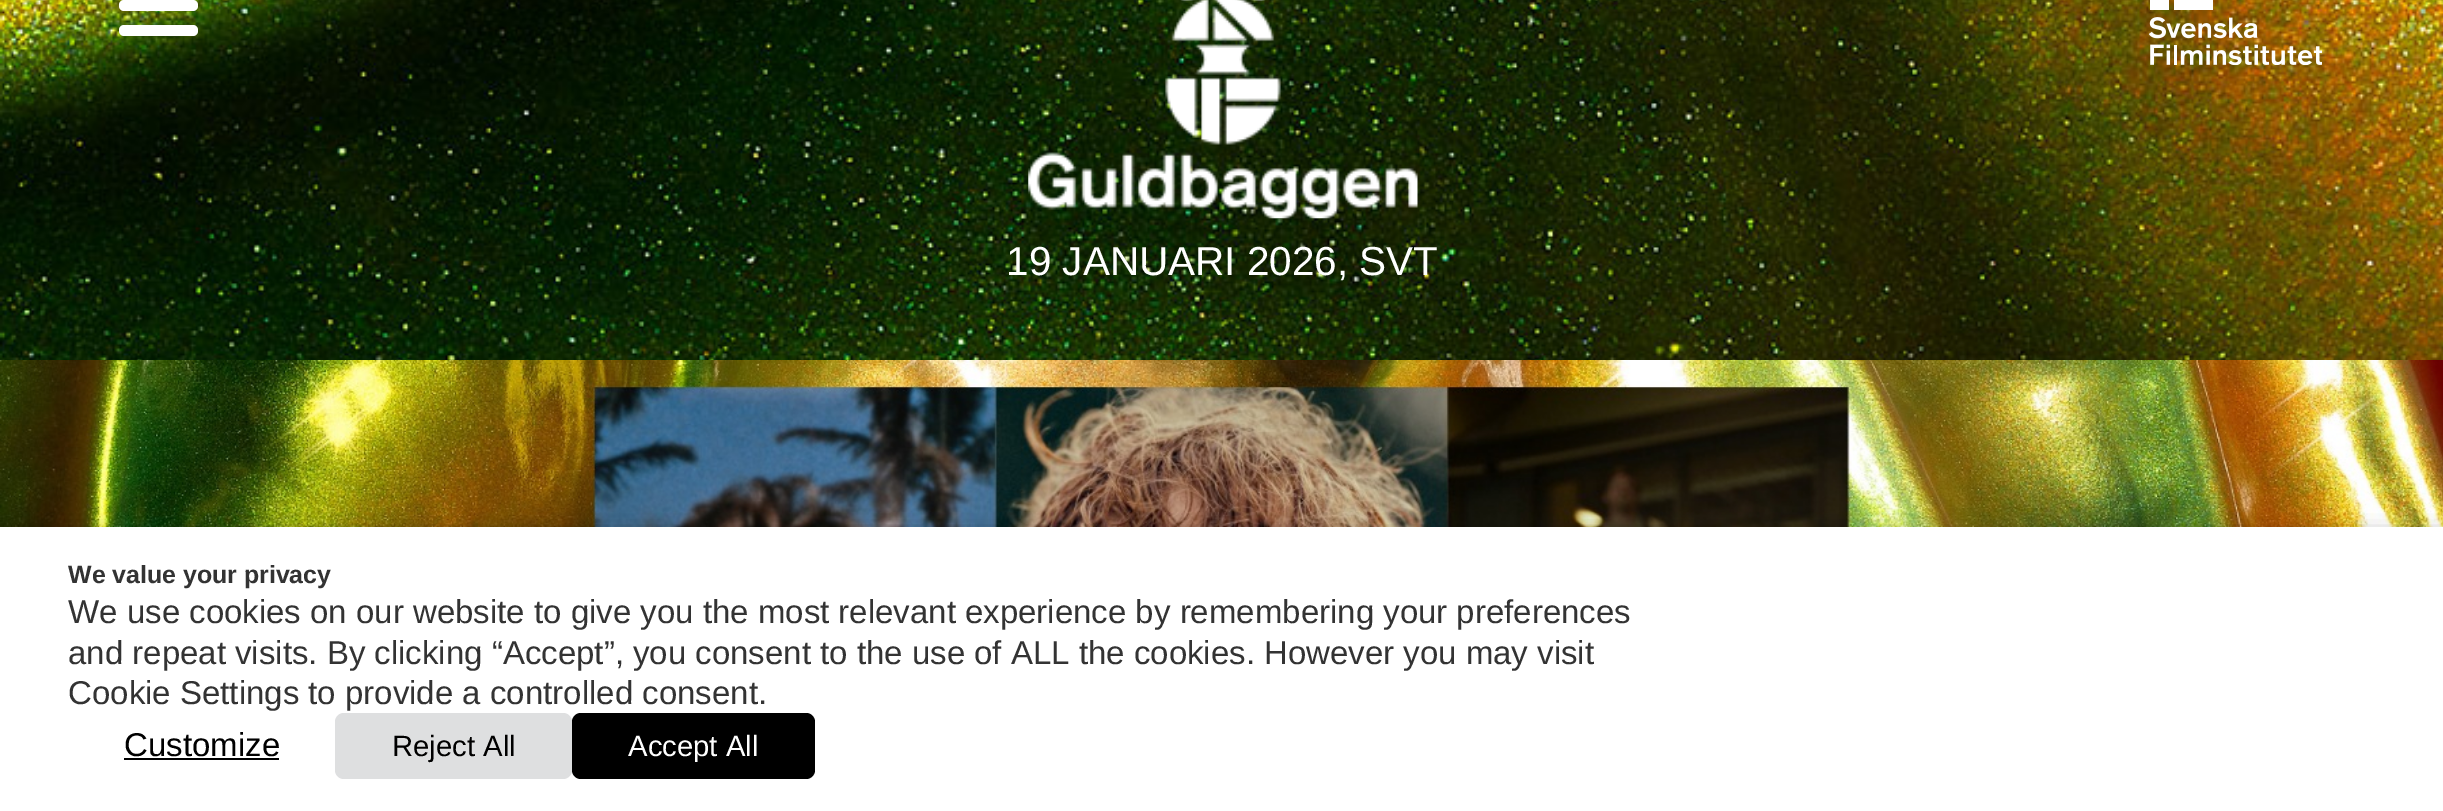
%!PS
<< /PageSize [2443 811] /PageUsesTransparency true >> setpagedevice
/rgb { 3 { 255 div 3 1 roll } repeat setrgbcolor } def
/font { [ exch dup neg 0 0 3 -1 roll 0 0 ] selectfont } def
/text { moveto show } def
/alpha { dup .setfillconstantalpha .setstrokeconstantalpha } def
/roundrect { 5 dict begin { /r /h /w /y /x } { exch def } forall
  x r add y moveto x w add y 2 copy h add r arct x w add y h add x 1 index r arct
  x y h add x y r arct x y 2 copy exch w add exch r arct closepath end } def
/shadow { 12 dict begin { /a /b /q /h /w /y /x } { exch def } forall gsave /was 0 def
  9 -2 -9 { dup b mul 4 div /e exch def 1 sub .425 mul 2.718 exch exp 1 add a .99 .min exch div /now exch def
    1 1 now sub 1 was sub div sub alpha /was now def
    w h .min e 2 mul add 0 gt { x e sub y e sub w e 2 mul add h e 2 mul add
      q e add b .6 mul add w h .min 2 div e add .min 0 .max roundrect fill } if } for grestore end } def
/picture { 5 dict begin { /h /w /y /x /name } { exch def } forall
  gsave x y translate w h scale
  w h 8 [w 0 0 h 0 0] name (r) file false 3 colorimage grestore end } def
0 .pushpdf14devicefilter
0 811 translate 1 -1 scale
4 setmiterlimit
255 255 255 rgb
0 0 2443 811 rectfill
(img_01.rgb) 0 0 2443 360 picture
119 0 79 11 5 roundrect fill
119 25 79 11 5 roundrect fill
(img_02.rgb) 2149 0 173 65 picture
(img_03.rgb) 1028 0 390 219 picture
(img_04.rgb) 0 360 2443 167 picture
0 0 0 rgb
0 538 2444 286 0 11 0.5 shadow
255 255 255 rgb
0 527 2443 284 rectfill
0 0 0 rgb
124 758 155 2 rectfill
222 223 224 rgb
335 713 237 66 9 roundrect fill
0 0 0 rgb
572 713 243 66 9 roundrect fill
/LiberationSans-Regular 40.5 font
255 255 255 rgb
(19 JANUARI 2026, SVT) 1006 275 text
/LiberationSans-Bold 24.9 font
51 51 51 rgb
(We value your privacy) 68 583 text
/LiberationSans-Regular 33 font
(We use cookies on our website to give you the most relevant experience by remembering your preferences) 68 623 text
(and repeat visits. By clicking “Accept”, you consent to the use of ALL the cookies. However you may visit) 68 664 text
(Cookie Settings to provide a controlled consent.) 68 704 text
0 0 0 rgb
(Customize) 124 756 text
/LiberationSans-Regular 29.25 font
(Reject All) 392 756 text
255 255 255 rgb
(Accept All) 628 756 text
.poppdf14devicefilter showpage
